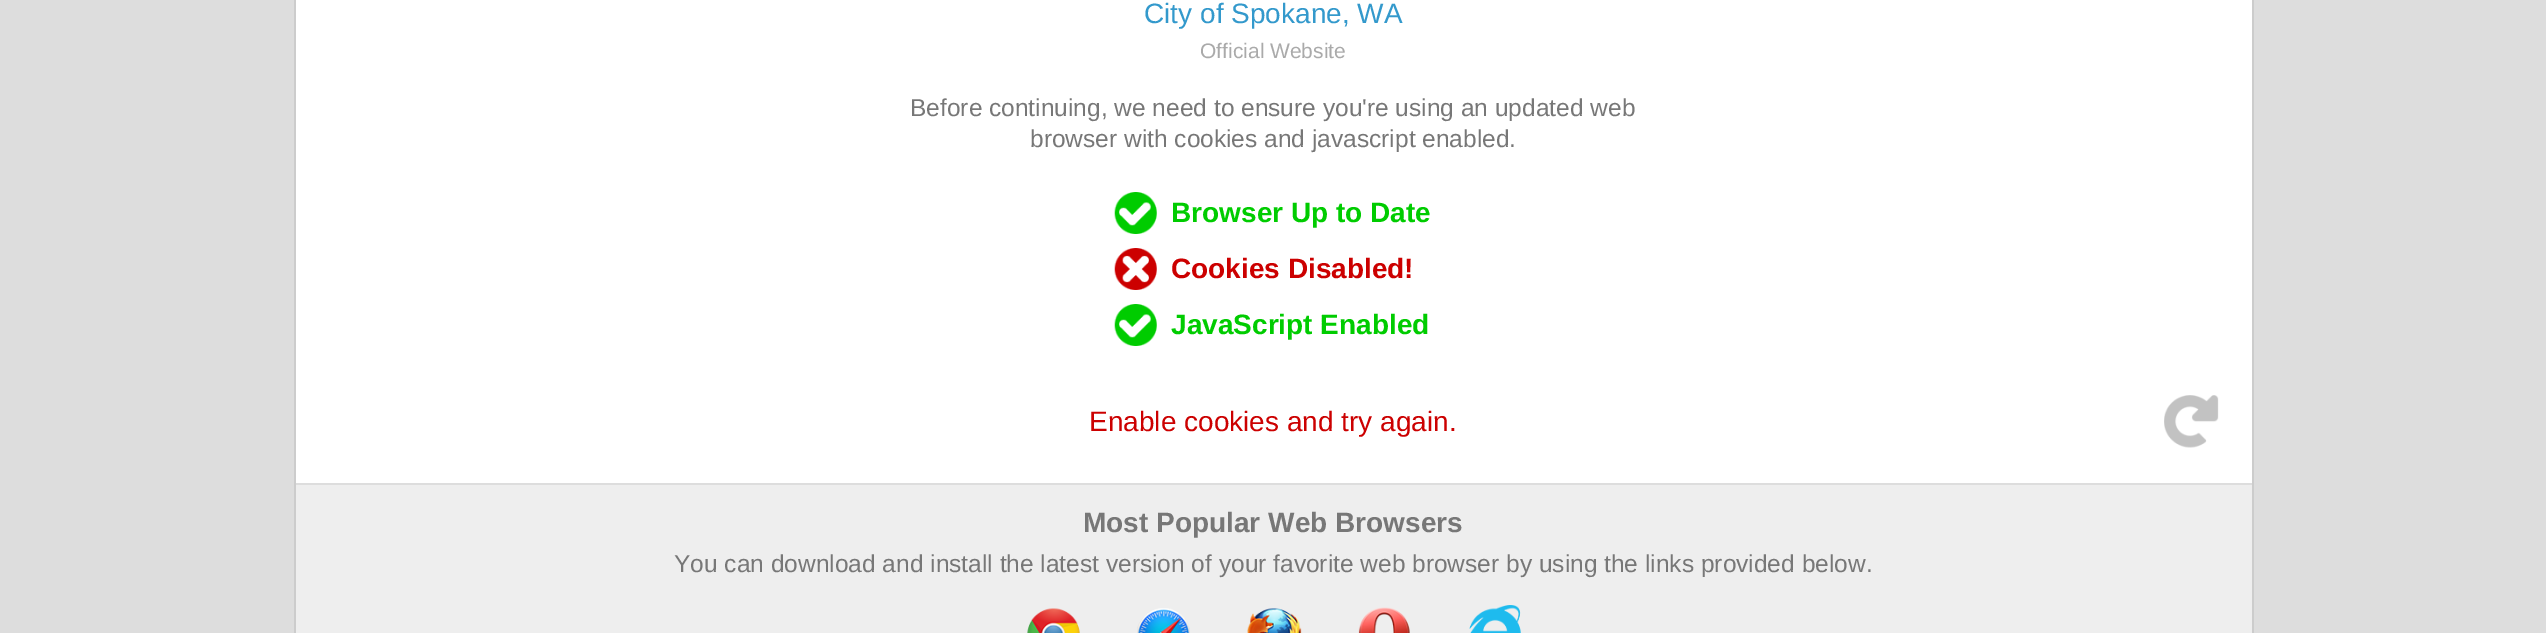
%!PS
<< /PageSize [2546 633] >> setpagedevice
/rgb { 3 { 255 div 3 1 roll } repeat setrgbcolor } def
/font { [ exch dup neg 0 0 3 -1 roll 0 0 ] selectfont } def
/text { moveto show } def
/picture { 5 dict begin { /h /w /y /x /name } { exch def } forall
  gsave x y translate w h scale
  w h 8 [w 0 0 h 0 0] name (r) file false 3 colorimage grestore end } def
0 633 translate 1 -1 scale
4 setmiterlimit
221 221 221 rgb
0 0 2546 633 rectfill
255 255 255 rgb
296 0 1956 483 rectfill
204 204 204 rgb
2252 0 2 633 rectfill
294 0 2 633 rectfill
(img_01.rgb) 1114 192 43 42 picture
(img_02.rgb) 1114 248 43 42 picture
(img_01.rgb) 1114 304 43 42 picture
(img_03.rgb) 2164 395 55 53 picture
238 238 238 rgb
296 485 1956 148 rectfill
(img_04.rgb) 1027 608 53 25 picture
(img_05.rgb) 1137 608 53 25 picture
(img_06.rgb) 1247 608 55 25 picture
(img_07.rgb) 1358 607 52 26 picture
(img_08.rgb) 1469 605 52 28 picture
/LiberationSans-Regular 28 font
51 153 204 rgb
(City of Spokane, WA) 1144 23 text
/LiberationSans-Regular 21 font
170 170 170 rgb
(Official Website) 1200 58 text
/LiberationSans-Regular 24.5 font
119 119 119 rgb
(Before continuing, we need to ensure you're using an updated web) 910 116 text
(browser with cookies and javascript enabled.) 1030 147 text
/LiberationSans-Bold 28 font
0 204 0 rgb
(Browser Up to Date) 1171 222 text
204 0 0 rgb
(Cookies Disabled!) 1171 278 text
0 204 0 rgb
(JavaScript Enabled) 1171 334 text
/LiberationSans-Regular 28 font
204 0 0 rgb
(Enable cookies and try again.) 1089 431 text
/LiberationSans-Bold 28 font
119 119 119 rgb
(Most Popular Web Browsers) 1083 532 text
/LiberationSans-Regular 24.5 font
(You can download and install the latest version of your favorite web browser by using the links provided below.) 674 572 text
showpage
